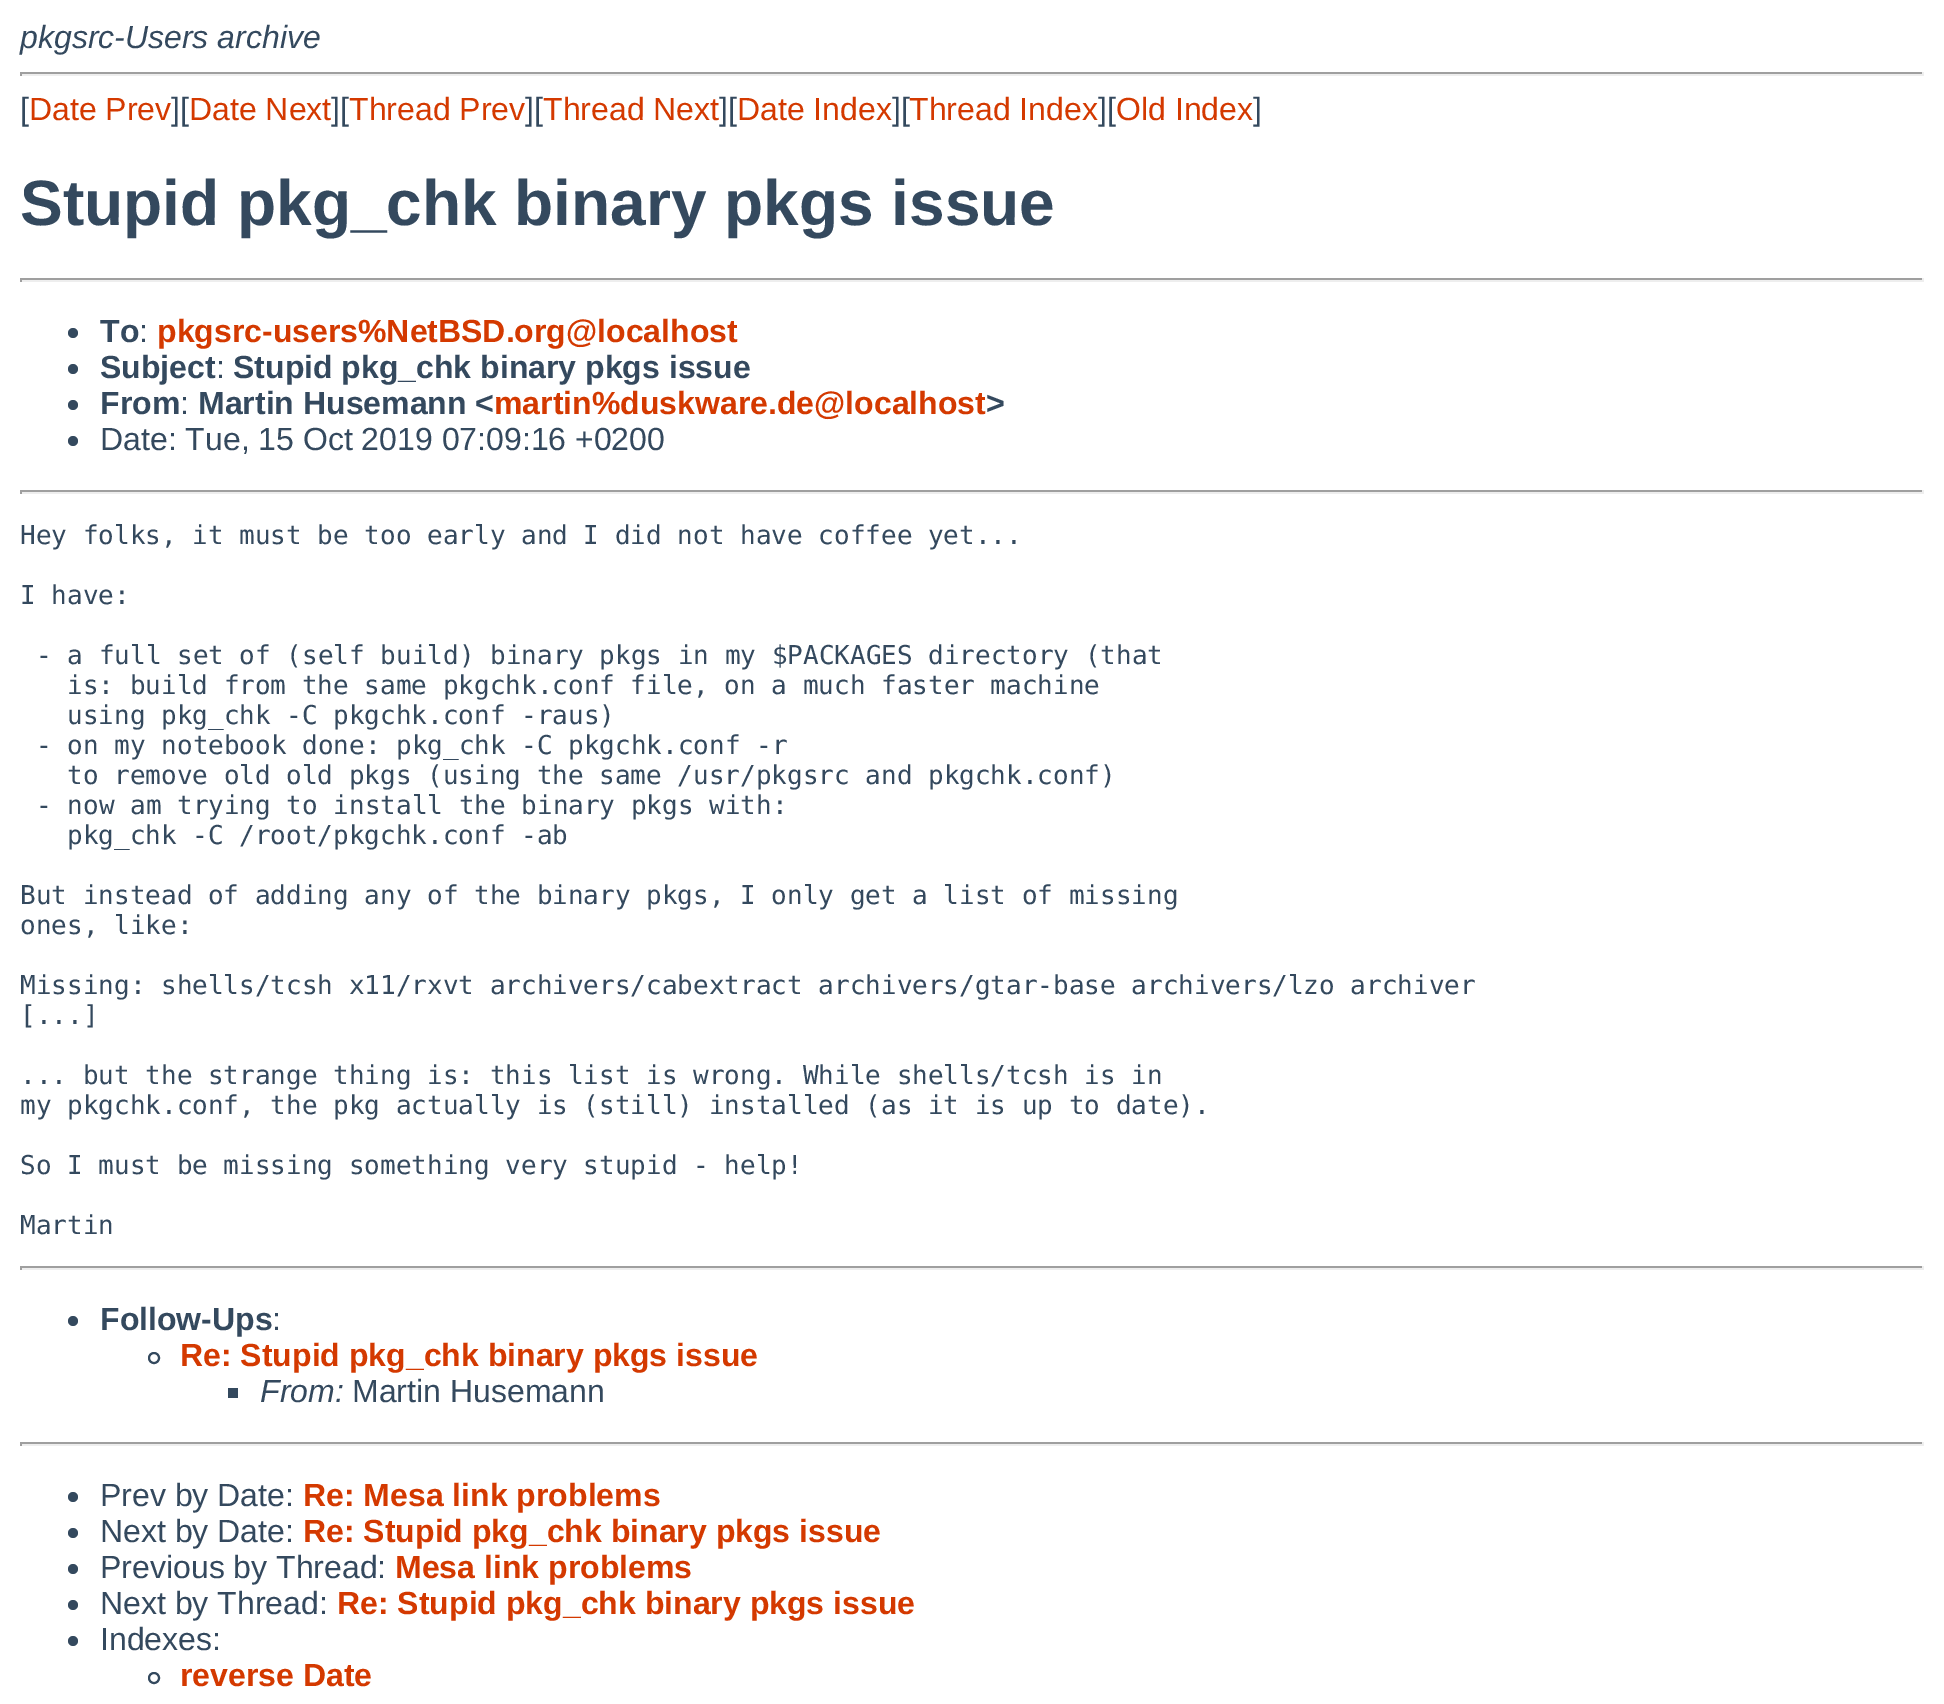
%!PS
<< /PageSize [1944 1704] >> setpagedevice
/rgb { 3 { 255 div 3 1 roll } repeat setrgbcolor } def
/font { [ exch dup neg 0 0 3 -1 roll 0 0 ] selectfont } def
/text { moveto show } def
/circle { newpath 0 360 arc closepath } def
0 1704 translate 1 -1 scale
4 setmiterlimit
255 255 255 rgb
0 0 1944 1704 rectfill
159 159 159 rgb
20 72 1904 2 rectfill
238 238 238 rgb
1922 72 2 4 rectfill
20 74 1904 2 rectfill
159 159 159 rgb
20 72 2 4 rectfill
20 278 1904 2 rectfill
238 238 238 rgb
1922 278 2 4 rectfill
20 280 1904 2 rectfill
159 159 159 rgb
20 278 2 4 rectfill
52 73 94 rgb
73 333 5 circle fill
73 369 5 circle fill
73 405 5 circle fill
73 441 5 circle fill
159 159 159 rgb
20 490 1904 2 rectfill
238 238 238 rgb
1922 490 2 4 rectfill
20 492 1904 2 rectfill
159 159 159 rgb
20 490 2 4 rectfill
20 1266 1904 2 rectfill
238 238 238 rgb
1922 1266 2 4 rectfill
20 1268 1904 2 rectfill
159 159 159 rgb
20 1266 2 4 rectfill
52 73 94 rgb
73 1321 5 circle fill
2 setlinewidth
154 1358 5 circle stroke
228 1388 10 10 rectfill
159 159 159 rgb
20 1442 1904 2 rectfill
238 238 238 rgb
1922 1442 2 4 rectfill
20 1444 1904 2 rectfill
159 159 159 rgb
20 1442 2 4 rectfill
52 73 94 rgb
73 1497 5 circle fill
73 1533 5 circle fill
73 1569 5 circle fill
73 1605 5 circle fill
73 1641 5 circle fill
154 1678 5 circle stroke
/LiberationSans-Italic 32 font
(pkgsrc-Users archive) 20 48 text
/LiberationSans-Regular 32 font
([) 20 120 text
212 57 0 rgb
(Date Prev) 29 120 text
52 73 94 rgb
(][) 171 120 text
212 57 0 rgb
(Date Next) 189 120 text
52 73 94 rgb
(][) 331 120 text
212 57 0 rgb
(Thread Prev) 349 120 text
52 73 94 rgb
(][) 525 120 text
212 57 0 rgb
(Thread Next) 543 120 text
52 73 94 rgb
(][) 719 120 text
212 57 0 rgb
(Date Index) 737 120 text
52 73 94 rgb
(][) 892 120 text
212 57 0 rgb
(Thread Index) 909 120 text
52 73 94 rgb
(][) 1098 120 text
212 57 0 rgb
(Old Index) 1116 120 text
52 73 94 rgb
(]) 1253 120 text
/LiberationSans-Bold 64 font
(Stupid pkg_chk binary pkgs issue) 20 225 text
/LiberationSans-Bold 32 font
(To) 100 342 text
/LiberationSans-Regular 32 font
(:) 139 342 text
/LiberationSans-Bold 32 font
212 57 0 rgb
(pkgsrc-users%NetBSD.org@localhost) 157 342 text
52 73 94 rgb
(Subject) 100 378 text
/LiberationSans-Regular 32 font
(:) 216 378 text
/LiberationSans-Bold 32 font
(Stupid pkg_chk binary pkgs issue) 233 378 text
(From) 100 414 text
/LiberationSans-Regular 32 font
(:) 180 414 text
/LiberationSans-Bold 32 font
(Martin Husemann <) 198 414 text
212 57 0 rgb
(martin%duskware.de@localhost) 494 414 text
52 73 94 rgb
(>) 986 414 text
/LiberationSans-Regular 32 font
(Date: Tue, 15 Oct 2019 07:09:16 +0200) 100 450 text
/DejaVuSansMono-Regular 26 font
(Hey folks, it must be too early and I did not have coffee yet...) 20 544 text
(I have:) 20 604 text
(- a full set of \(self build\) binary pkgs in my $PACKAGES directory \(that) 36 664 text
(is: build from the same pkgchk.conf file, on a much faster machine) 67 694 text
(using pkg_chk -C pkgchk.conf -raus\)) 67 724 text
(- on my notebook done: pkg_chk -C pkgchk.conf -r) 36 754 text
(to remove old old pkgs \(using the same /usr/pkgsrc and pkgchk.conf\)) 67 784 text
(- now am trying to install the binary pkgs with:) 36 814 text
(pkg_chk -C /root/pkgchk.conf -ab) 67 844 text
(But instead of adding any of the binary pkgs, I only get a list of missing) 20 904 text
(ones, like:) 20 934 text
(Missing: shells/tcsh x11/rxvt archivers/cabextract archivers/gtar-base archivers/lzo archiver) 20 994 text
([...]) 20 1024 text
(... but the strange thing is: this list is wrong. While shells/tcsh is in) 20 1084 text
(my pkgchk.conf, the pkg actually is \(still\) installed \(as it is up to date\).) 20 1114 text
(So I must be missing something very stupid - help!) 20 1174 text
(Martin) 20 1234 text
/LiberationSans-Bold 32 font
(Follow-Ups) 100 1330 text
/LiberationSans-Regular 32 font
(:) 272 1330 text
/LiberationSans-Bold 32 font
212 57 0 rgb
(Re: Stupid pkg_chk binary pkgs issue) 180 1366 text
/LiberationSans-Italic 32 font
52 73 94 rgb
(From:) 260 1402 text
/LiberationSans-Regular 32 font
(Martin Husemann) 352 1402 text
(Prev by Date:) 100 1506 text
/LiberationSans-Bold 32 font
212 57 0 rgb
(Re: Mesa link problems) 303 1506 text
/LiberationSans-Regular 32 font
52 73 94 rgb
(Next by Date:) 100 1542 text
/LiberationSans-Bold 32 font
212 57 0 rgb
(Re: Stupid pkg_chk binary pkgs issue) 303 1542 text
/LiberationSans-Regular 32 font
52 73 94 rgb
(Previous by Thread:) 100 1578 text
/LiberationSans-Bold 32 font
212 57 0 rgb
(Mesa link problems) 395 1578 text
/LiberationSans-Regular 32 font
52 73 94 rgb
(Next by Thread:) 100 1614 text
/LiberationSans-Bold 32 font
212 57 0 rgb
(Re: Stupid pkg_chk binary pkgs issue) 337 1614 text
/LiberationSans-Regular 32 font
52 73 94 rgb
(Indexes:) 100 1650 text
/LiberationSans-Bold 32 font
212 57 0 rgb
(reverse Date) 180 1686 text
showpage
